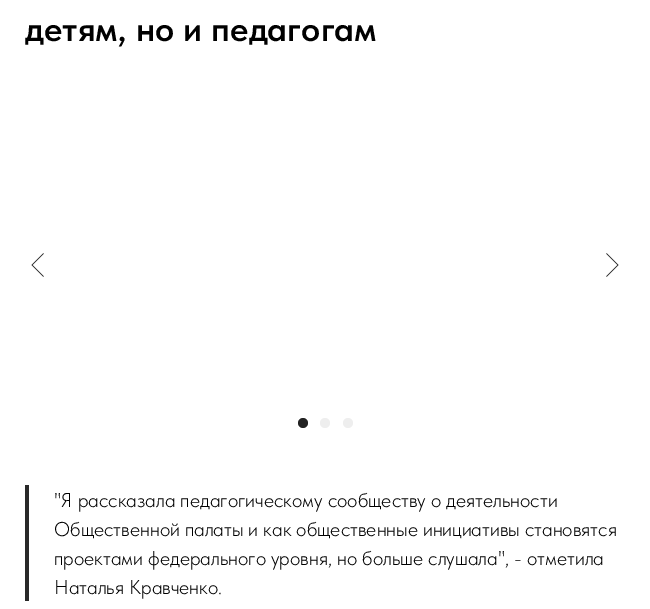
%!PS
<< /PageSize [650 609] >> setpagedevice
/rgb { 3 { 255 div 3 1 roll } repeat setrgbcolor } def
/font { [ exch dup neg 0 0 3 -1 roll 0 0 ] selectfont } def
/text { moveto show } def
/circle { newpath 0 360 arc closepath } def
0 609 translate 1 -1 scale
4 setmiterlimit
255 255 255 rgb
0 0 650 609 rectfill
34 34 34 rgb
0.7 setlinewidth
43.5 276.5 moveto -11.5 -11.5 rlineto 11.5 -11.5 rlineto stroke
606.5 253.5 moveto 11.5 11.5 rlineto -11.5 11.5 rlineto stroke
303 423 5 circle fill
238 238 238 rgb
325 423 5 circle fill
348 423 5 circle fill
41 41 41 rgb
25 485 4 116 rectfill
/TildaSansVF-SemiBold 35 font
0 0 0 rgb
(детям, но и педагогам) 25 41 text
/TildaSansVF-Light 20 font
("Я рассказала педагогическому сообществу о деятельности) 54 507 text
(Общественной палаты и как общественные инициативы становятся) 54 536 text
(проектами федерального уровня, но больше слушала", - отметила) 54 565 text
(Наталья Кравченко.) 54 594 text
showpage
